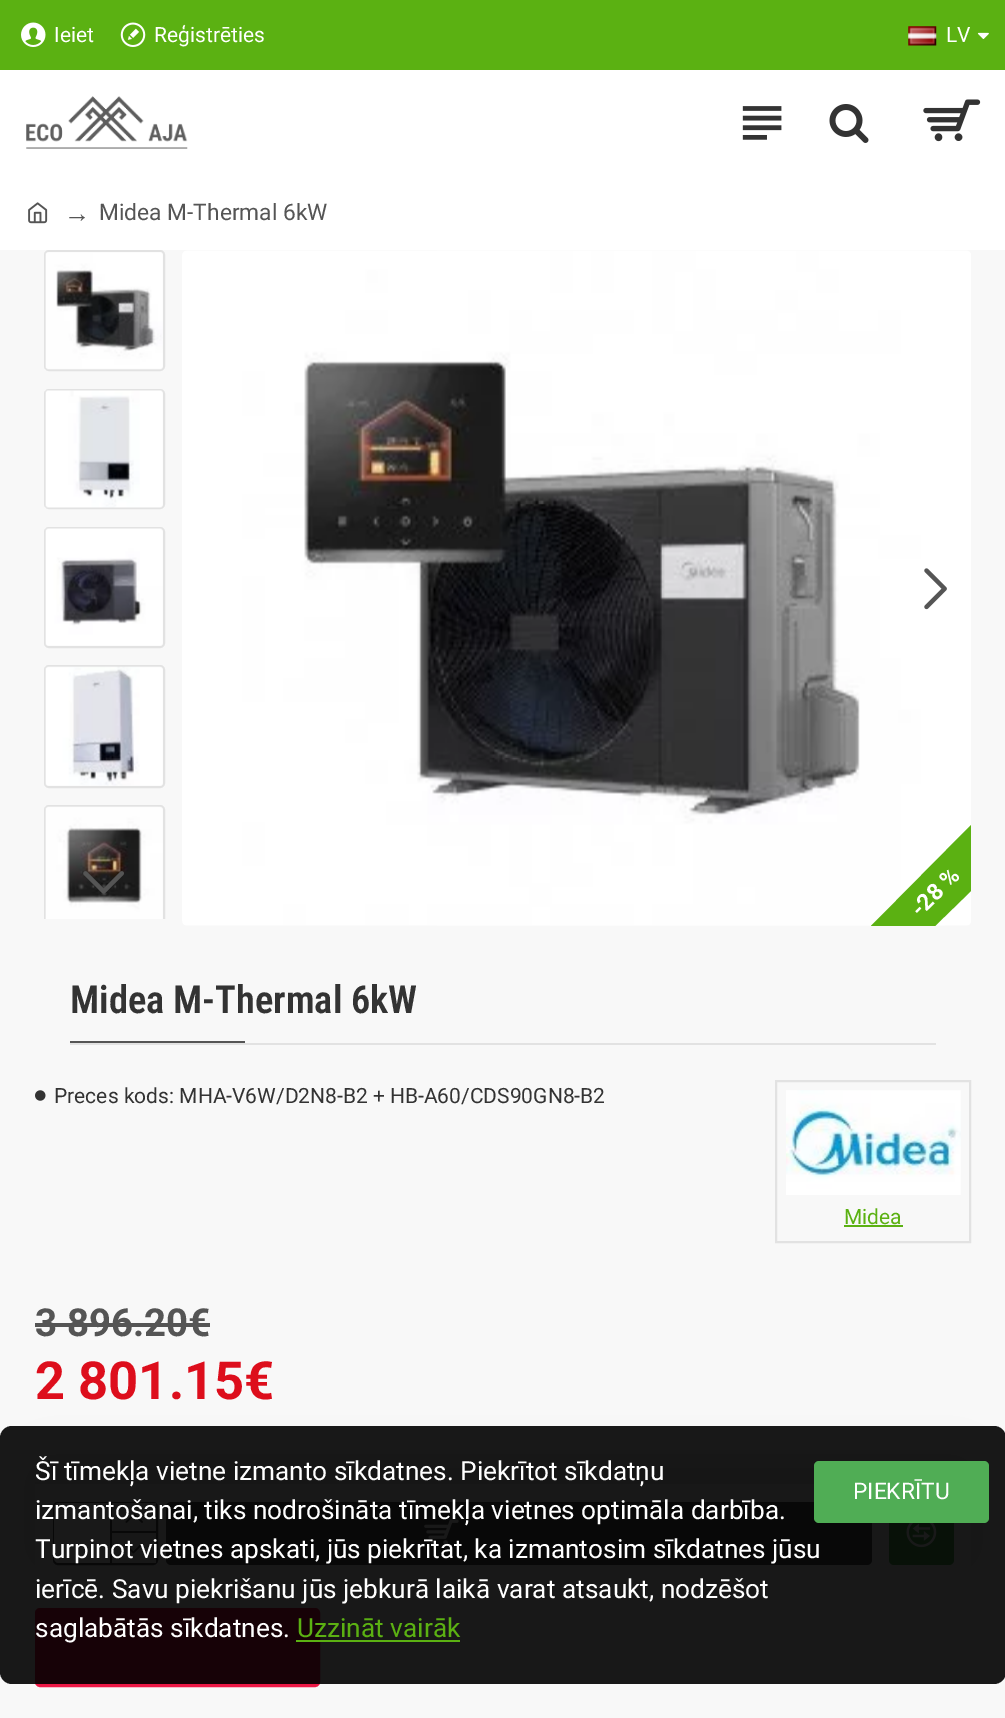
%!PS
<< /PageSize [1005 1718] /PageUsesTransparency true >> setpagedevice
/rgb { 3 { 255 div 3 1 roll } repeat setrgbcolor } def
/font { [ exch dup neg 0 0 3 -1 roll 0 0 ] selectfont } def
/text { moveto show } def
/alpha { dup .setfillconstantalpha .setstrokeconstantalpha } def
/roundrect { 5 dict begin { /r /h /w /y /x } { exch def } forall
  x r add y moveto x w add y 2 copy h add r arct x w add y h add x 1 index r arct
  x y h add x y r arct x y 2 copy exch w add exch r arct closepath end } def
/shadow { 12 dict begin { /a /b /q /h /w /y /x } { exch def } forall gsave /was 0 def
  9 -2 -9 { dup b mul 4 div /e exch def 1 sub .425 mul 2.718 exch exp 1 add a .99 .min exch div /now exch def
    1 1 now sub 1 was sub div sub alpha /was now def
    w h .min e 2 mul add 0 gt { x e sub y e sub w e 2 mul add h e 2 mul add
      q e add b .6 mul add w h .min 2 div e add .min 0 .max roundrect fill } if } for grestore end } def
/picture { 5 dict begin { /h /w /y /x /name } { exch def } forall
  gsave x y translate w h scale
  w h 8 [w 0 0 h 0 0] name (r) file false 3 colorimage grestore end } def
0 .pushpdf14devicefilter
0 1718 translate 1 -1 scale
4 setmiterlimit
248 248 248 rgb
0 0 1005 1718 rectfill
91 177 18 rgb
0 0 1005 70 rectfill
(img_01.rgb) 21 22 25 25 picture
(img_02.rgb) 120 22 26 25 picture
(img_03.rgb) 908 26 29 20 picture
(img_04.rgb) 977 32 12 7 picture
255 255 255 rgb
0 70 1005 180 rectfill
(img_05.rgb) 26 96 162 53 picture
(img_06.rgb) 742 106 40 34 picture
(img_07.rgb) 829 104 40 39 picture
(img_08.rgb) 923 99 58 43 picture
(img_09.rgb) 28 202 20 22 picture
226 226 226 rgb
2 setlinewidth
45 251 119 119 4 roundrect stroke
(img_10.rgb) 45 252 118 118 picture
45 390 119 118 4 roundrect stroke
(img_11.rgb) 45 390 118 118 picture
45 528 119 119 4 roundrect stroke
(img_12.rgb) 45 528 118 118 picture
45 666 119 121 4 roundrect stroke
(img_13.rgb) 45 666 118 120 picture
gsave
35 242 138 677 rectclip
45 806 119 119 4 roundrect stroke
grestore
(img_14.rgb) 45 806 118 113 picture
(img_15.rgb) 83 871 41 23 picture
(img_16.rgb) 182 250 789 676 picture
(img_17.rgb) 924 568 23 42 picture
91 177 18 rgb
935 926 moveto -64 0 rlineto 100 -101 rlineto 0 66 rlineto closepath fill
226 226 226 rgb
70 1043 866 2 rectfill
85 85 85 rgb
70 1041 175 2 rectfill
(img_18.rgb) 35 1090 11 11 picture
226 226 226 rgb
776 1081 194 161 rectstroke
(img_19.rgb) 786 1090 175 105 picture
91 177 18 rgb
844 1225 59 2 rectfill
85 85 85 rgb
35 1323 175 4 rectfill
237 24 70 rgb
36 1609 283 77 4 roundrect gsave fill grestore
stroke
0 0 0 rgb
44 1474 919 82 0 26 0.15 shadow
240 242 245 rgb
35 1484 936 98 rectfill
226 226 226 rgb
35 1482 34 2 rectfill
85 85 85 rgb
54 1503 103 61 4 roundrect stroke
255 255 255 rgb
54 1503 102 60 5 roundrect fill
85 85 85 rgb
110 1503 2 60 rectfill
238 238 238 rgb
112 1503 44 28 rectfill
85 85 85 rgb
112 1531 44 2 rectfill
(img_20.rgb) 125 1513 18 10 picture
238 238 238 rgb
112 1533 44 30 rectfill
(img_21.rgb) 124 1543 19 11 picture
85 85 85 rgb
166 1502 706 63 5 roundrect fill
(img_22.rgb) 424 1519 35 26 picture
80 173 85 rgb
889 1502 65 63 5 roundrect fill
(img_23.rgb) 906 1523 31 25 picture
0.9 alpha
0 0 0 rgb
0 1426 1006 258 12 roundrect fill
1 alpha
91 177 18 rgb
296 1640 164 2 rectfill
80 173 85 rgb
814 1461 175 62 5 roundrect fill
/Roboto-Regular 21 font
255 255 255 rgb
(Ieiet) 54 42 text
(Reģistrēties) 154 42 text
(LV) 946 42 text
/LiberationSerif-Regular 26.25 font
85 85 85 rgb
(→) 64 222 text
/Roboto-Regular 22.75 font
(Midea M-Thermal 6kW) 99 220 text
/Roboto-Bold 23 font
255 255 255 rgb
gsave 920 918 translate -45 rotate 0 0 moveto (-28 %) show grestore
/RobotoCondensed-SemiBold 38.5 font
51 51 51 rgb
(Midea M-Thermal 6kW) 70 1013 text
/Roboto-Regular 21 font
(Preces kods: MHA-V6W/D2N8-B2 + HB-A60/CDS90GN8-B2) 54 1103 text
91 177 18 rgb
(Midea) 844 1224 text
/Roboto-Bold 38.5 font
85 85 85 rgb
(3 896.20€) 35 1336 text
/Roboto-Bold 52.5 font
221 14 28 rgb
(2 801.15€) 35 1399 text
/Roboto-Regular 26.25 font
255 255 255 rgb
(Šī tīmekļa vietne izmanto sīkdatnes. Piekrītot sīkdatņu) 35 1480 text
(izmantošanai, tiks nodrošināta tīmekļa vietnes optimāla darbība.) 35 1519 text
(Turpinot vietnes apskati, jūs piekrītat, ka izmantosim sīkdatnes jūsu) 35 1558 text
(ierīcē. Savu piekrišanu jūs jebkurā laikā varat atsaukt, nodzēšot) 35 1598 text
(saglabātās sīkdatnes.) 35 1637 text
91 177 18 rgb
(Uzzināt vairāk) 297 1637 text
/Roboto-Regular 22.75 font
255 255 255 rgb
(PIEKRĪTU) 853 1499 text
.poppdf14devicefilter showpage
